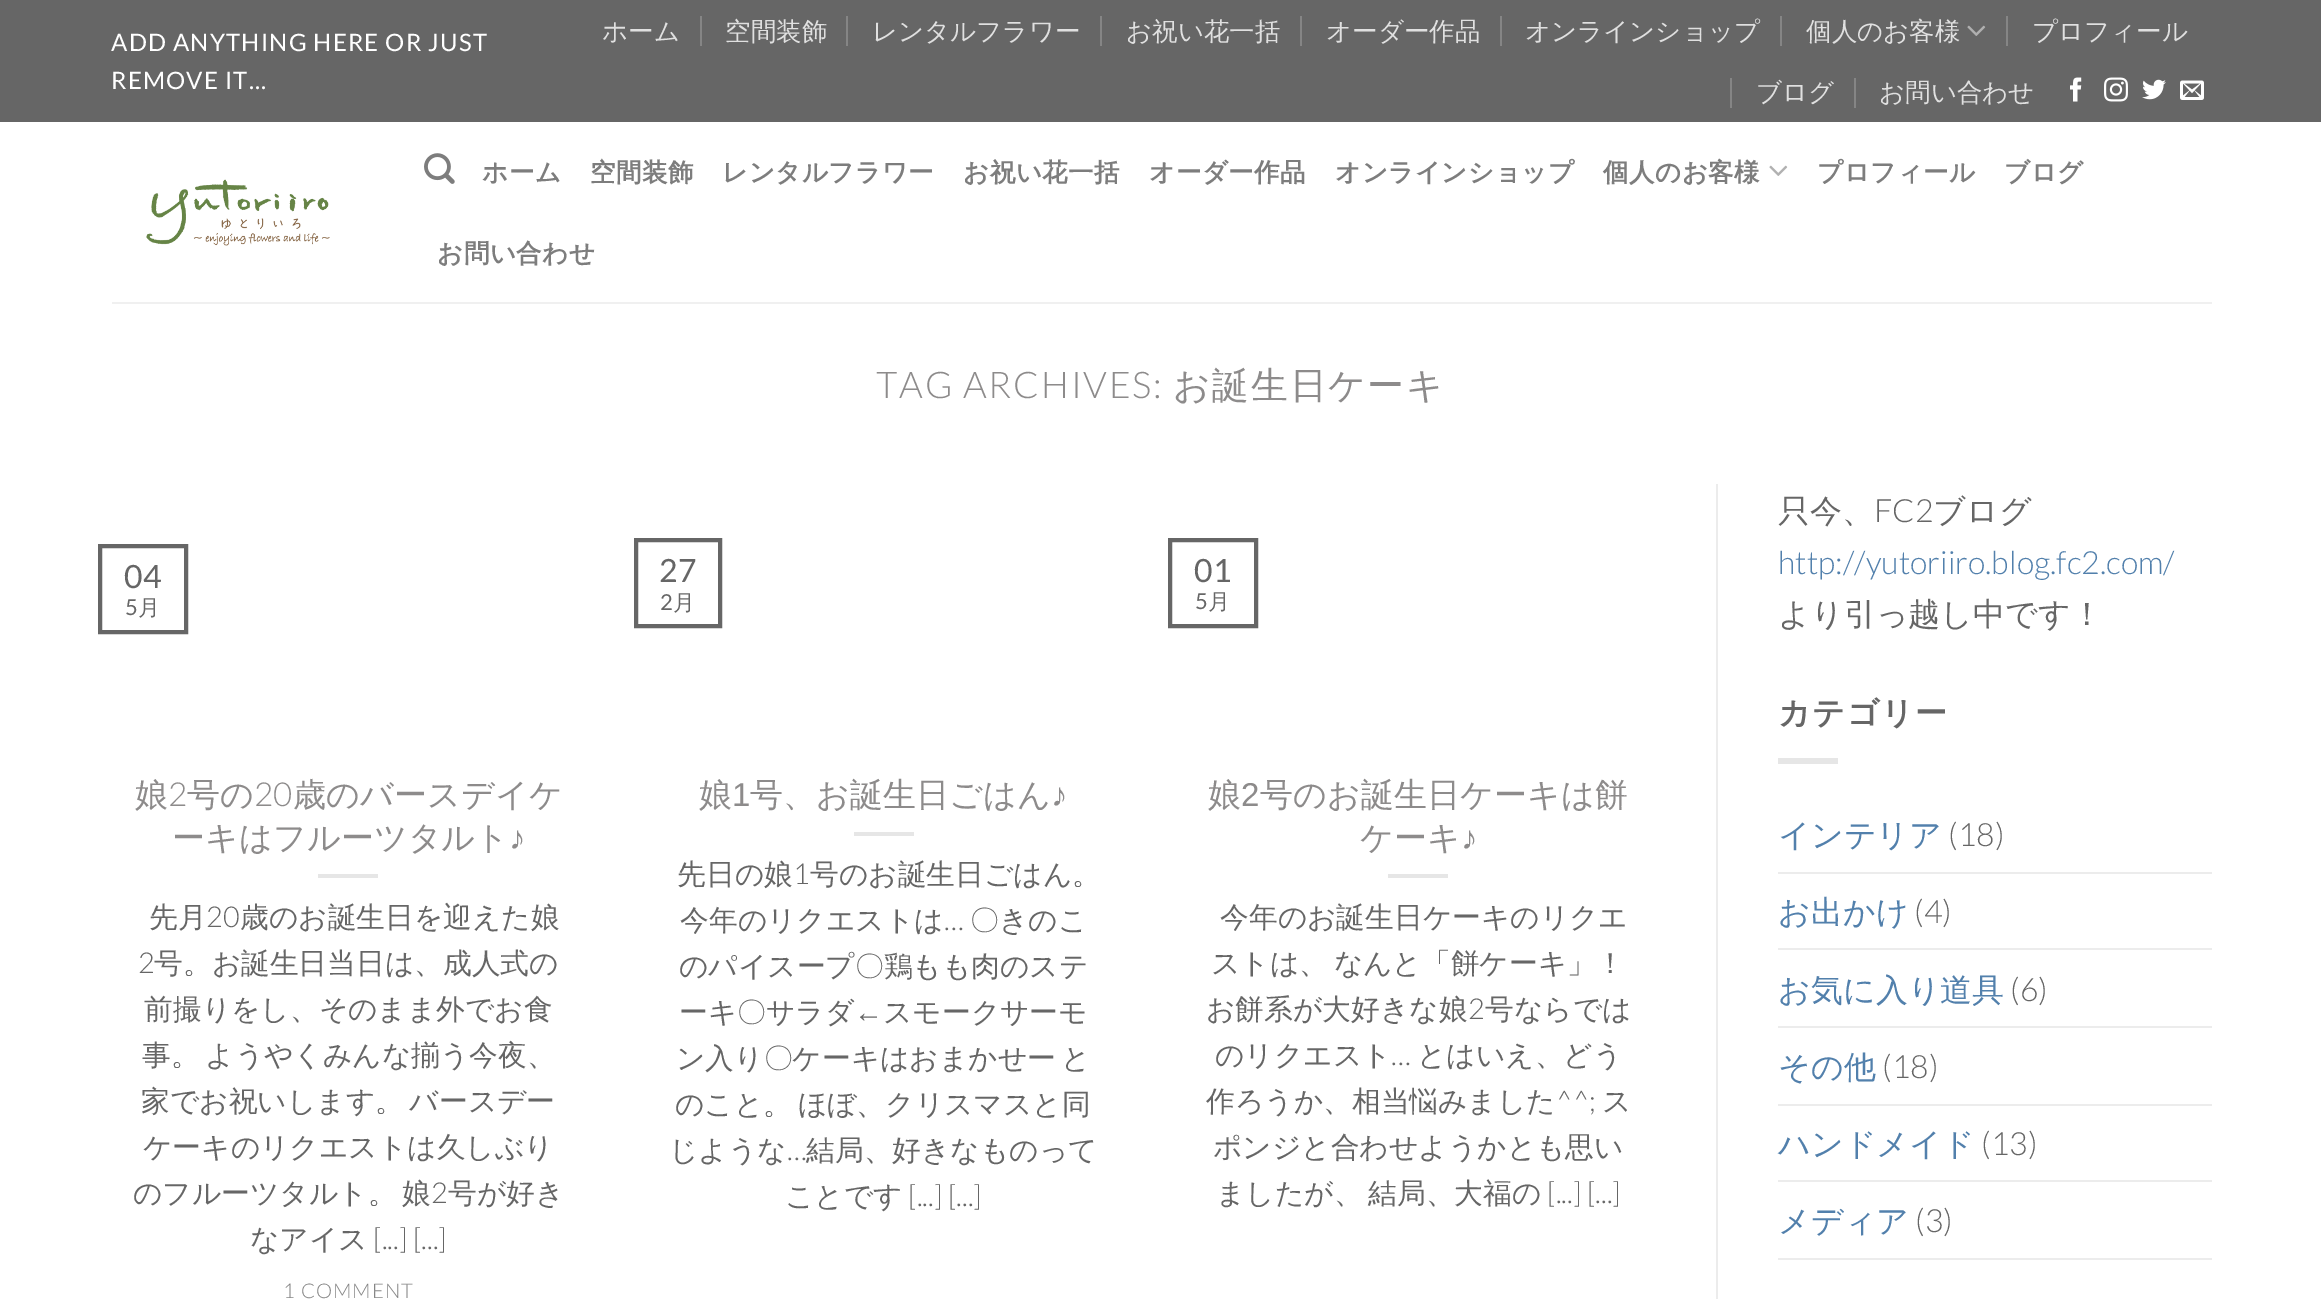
%!PS
<< /PageSize [2321 1299] >> setpagedevice
/rgb { 3 { 255 div 3 1 roll } repeat setrgbcolor } def
/font { [ exch dup neg 0 0 3 -1 roll 0 0 ] selectfont } def
/text { moveto show } def
/picture { 5 dict begin { /h /w /y /x /name } { exch def } forall
  gsave x y translate w h scale
  w h 8 [w 0 0 h 0 0] name (r) file false 3 colorimage grestore end } def
0 1299 translate 1 -1 scale
4 setmiterlimit
255 255 255 rgb
0 0 2321 1299 rectfill
102 102 102 rgb
0 0 2321 122 rectfill
133 133 133 rgb
700 16 2 30 rectfill
846 16 2 30 rectfill
1100 16 2 30 rectfill
1300 16 2 30 rectfill
1500 16 2 30 rectfill
1780 16 2 30 rectfill
(img_01.rgb) 1967 25 19 11 picture
2006 16 2 30 rectfill
1730 78 2 30 rectfill
1854 78 2 30 rectfill
(img_02.rgb) 2070 77 12 25 picture
(img_03.rgb) 2104 77 24 25 picture
(img_04.rgb) 2142 79 24 21 picture
(img_05.rgb) 2180 80 24 20 picture
(img_06.rgb) 146 179 184 67 picture
(img_07.rgb) 424 153 31 31 picture
(img_08.rgb) 1769 165 19 11 picture
240 240 240 rgb
112 302 2100 2 rectfill
102 102 102 rgb
4 setlinewidth
100 546 86 86 rectstroke
230 230 230 rgb
318 874 60 4 rectfill
102 102 102 rgb
636 540 84 86 rectstroke
230 230 230 rgb
854 832 60 4 rectfill
102 102 102 rgb
1170 540 86 86 rectstroke
230 230 230 rgb
1388 874 60 4 rectfill
236 236 236 rgb
1716 484 2 815 rectfill
230 230 230 rgb
1778 758 60 6 rectfill
236 236 236 rgb
1778 872 434 2 rectfill
1778 948 434 2 rectfill
1778 1026 434 2 rectfill
1778 1104 434 2 rectfill
1778 1180 434 2 rectfill
1778 1258 434 2 rectfill
/Lato-Regular 24 font
255 255 255 rgb
111 51 moveto 1.2 0 (ADD ANYTHING HERE OR JUST) ashow
111 89 moveto 1.2 0 (REMOVE IT...) ashow
/WenQuanYiZenHei-Medium 25.5 font
224 224 224 rgb
(ホーム) 602 40 text
(空間装飾) 725 40 text
(レンタルフラワー) 872 40 text
(お祝い花一括) 1126 40 text
(オーダー作品) 1326 40 text
(オンラインショップ) 1525 40 text
(個人のお客様) 1806 40 text
(プロフィール) 2032 40 text
(ブログ) 1756 101 text
(お問い合わせ) 1879 101 text
/WenQuanYiZenHei-Bold 25.5 font
125 125 125 rgb
482 181 moveto 0.5 0 (ホーム) ashow
590 181 moveto 0.5 0 (空間装飾) ashow
722 181 moveto 0.5 0 (レンタルフラワー) ashow
963 181 moveto 0.5 0 (お祝い花一括) ashow
1149 181 moveto 0.5 0 (オーダー作品) ashow
1335 181 moveto 0.5 0 (オンラインショップ) ashow
1603 181 moveto 0.5 0 (個人のお客様) ashow
1817 181 moveto 0.5 0 (プロフィール) ashow
2004 181 moveto 0.5 0 (ブログ) ashow
437 262 moveto 0.5 0 (お問い合わせ) ashow
/Lato-Light 36.75 font
141 139 139 rgb
876 398 moveto 1.8 0 (TAG ARCHIVES:) ashow
/WenQuanYiZenHei-Medium 36.75 font
1173 398 moveto 1.8 0 (お誕生日ケーキ) ashow
/Lato-Regular 32 font
102 102 102 rgb
(04) 124 588 text
/Lato-Regular 22 font
(5) 125 615 text
/WenQuanYiZenHei-Medium 22 font
(月) 138 615 text
/WenQuanYiZenHei-Medium 33.1 font
141 139 139 rgb
(娘) 135 806 text
/Lato-Light 33.1 font
(2) 168 806 text
/WenQuanYiZenHei-Medium 33.1 font
(号の) 187 806 text
/Lato-Light 33.1 font
(20) 254 806 text
/WenQuanYiZenHei-Medium 33.1 font
(歳のバースデイケ) 293 806 text
(ーキはフルーツタルト) 172 849 text
/LiberationSans-Regular 33.1 font
(♪) 509 849 text
/WenQuanYiZenHei-Medium 28.75 font
102 102 102 rgb
(先月) 149 927 text
/Lato-Light 28.75 font
(20) 206 927 text
/WenQuanYiZenHei-Medium 28.75 font
(歳のお誕生日を迎えた娘) 240 927 text
/Lato-Light 28.75 font
(2) 138 973 text
/WenQuanYiZenHei-Medium 28.75 font
(号。お誕生日当日は、成人式の) 154 973 text
(前撮りをし、そのまま外でお食) 144 1019 text
142 1065 moveto -3 0 32 (事。 ようやくみんな揃う今夜、) widthshow
141 1111 moveto -3 0 32 (家でお祝いします。 バースデー) widthshow
(ケーキのリクエストは久しぶり) 143 1157 text
133 1203 moveto -3 0 32 (のフルーツタルト。 娘) widthshow
/Lato-Light 28.75 font
(2) 431 1203 text
/WenQuanYiZenHei-Medium 28.75 font
(号が好き) 448 1203 text
(なアイス) 250 1249 text
/Lato-Light 28.75 font
([...] [...]) 373 1249 text
/Lato-Light 20.25 font
133 133 133 rgb
283 1298 moveto 1 0 (1 COMMENT) ashow
/Lato-Regular 32 font
102 102 102 rgb
(27) 659 582 text
/Lato-Regular 22 font
(2) 660 610 text
/WenQuanYiZenHei-Medium 22 font
(月) 673 610 text
/WenQuanYiZenHei-Medium 33.1 font
141 139 139 rgb
(娘) 699 806 text
/LiberationSans-Regular 33.1 font
(1) 732 806 text
/WenQuanYiZenHei-Medium 33.1 font
(号、お誕生日ごはん) 750 806 text
/LiberationSans-Regular 33.1 font
(♪) 1051 806 text
/WenQuanYiZenHei-Medium 28.75 font
102 102 102 rgb
(先日の娘) 677 884 text
/Lato-Light 28.75 font
(1) 793 884 text
/WenQuanYiZenHei-Medium 28.75 font
(号のお誕生日ごはん。) 810 884 text
(今年のリクエストは) 680 930 text
/Lato-Light 28.75 font
(…) 944 930 text
/WenQuanYiZenHei-Medium 28.75 font
(〇きのこ) 970 930 text
(のパイスープ〇鶏もも肉のステ) 679 976 text
(ーキ〇サラダ) 679 1022 text
/LiberationSans-Regular 28.75 font
(←) 854 1022 text
/WenQuanYiZenHei-Medium 28.75 font
(スモークサーモ) 883 1022 text
676 1068 moveto -3 0 32 (ン入り〇ケーキはおまかせー と) widthshow
675 1114 moveto -3 0 32 (のこと。 ほぼ、クリスマスと同) widthshow
(じような) 669 1160 text
/Lato-Light 28.75 font
(…) 787 1160 text
/WenQuanYiZenHei-Medium 28.75 font
(結局、好きなものって) 806 1160 text
(ことです) 785 1206 text
/Lato-Light 28.75 font
([...] [...]) 908 1206 text
/Lato-Regular 32 font
(01) 1194 582 text
/Lato-Regular 22 font
(5) 1195 609 text
/WenQuanYiZenHei-Medium 22 font
(月) 1208 609 text
/WenQuanYiZenHei-Medium 33.1 font
141 139 139 rgb
(娘) 1208 806 text
/LiberationSans-Regular 33.1 font
(2) 1241 806 text
/WenQuanYiZenHei-Medium 33.1 font
(号のお誕生日ケーキは餅) 1260 806 text
(ケーキ) 1360 849 text
/LiberationSans-Regular 33.1 font
(♪) 1461 849 text
/WenQuanYiZenHei-Medium 28.75 font
102 102 102 rgb
(今年のお誕生日ケーキのリクエ) 1220 927 text
1211 973 moveto -3 0 32 (ストは、 なんと「餅ケーキ」！) widthshow
(お餅系が大好きな娘) 1206 1019 text
/Lato-Light 28.75 font
(2) 1468 1019 text
/WenQuanYiZenHei-Medium 28.75 font
(号ならでは) 1485 1019 text
(のリクエスト) 1215 1065 text
/Lato-Light 28.75 font
(…) 1391 1065 text
/WenQuanYiZenHei-Medium 28.75 font
(とはいえ、どう) 1417 1065 text
(作ろうか、相当悩みました) 1206 1111 text
/Lato-Light 28.75 font
(^^;) 1556 1111 text
/WenQuanYiZenHei-Medium 28.75 font
(ス) 1602 1111 text
(ポンジと合わせようかとも思い) 1213 1157 text
(ましたが、) 1216 1203 text
(結局、大福の) 1368 1203 text
/Lato-Light 28.75 font
([...] [...]) 1547 1203 text
/WenQuanYiZenHei-Medium 32 font
(只今、) 1778 522 text
/Lato-Light 32 font
(FC2) 1874 522 text
/WenQuanYiZenHei-Medium 32 font
(ブログ) 1933 522 text
/Lato-Light 32 font
82 128 172 rgb
(http://yutoriiro.blog.fc2.com/) 1778 574 text
/WenQuanYiZenHei-Medium 32 font
102 102 102 rgb
(より引っ越し中です！) 1778 625 text
/WenQuanYiZenHei-Bold 32 font
1778 724 moveto 1.5 0 (カテゴリー) ashow
/WenQuanYiZenHei-Medium 32 font
82 128 172 rgb
(インテリア) 1778 846 text
/Lato-Light 32 font
102 102 102 rgb
(\(18\)) 1948 846 text
/WenQuanYiZenHei-Medium 32 font
82 128 172 rgb
(お出かけ) 1778 923 text
/Lato-Light 32 font
102 102 102 rgb
(\(4\)) 1914 923 text
/WenQuanYiZenHei-Medium 32 font
82 128 172 rgb
(お気に入り道具) 1778 1001 text
/Lato-Light 32 font
102 102 102 rgb
(\(6\)) 2010 1001 text
/WenQuanYiZenHei-Medium 32 font
82 128 172 rgb
(その他) 1778 1078 text
/Lato-Light 32 font
102 102 102 rgb
(\(18\)) 1882 1078 text
/WenQuanYiZenHei-Medium 32 font
82 128 172 rgb
(ハンドメイド) 1778 1155 text
/Lato-Light 32 font
102 102 102 rgb
(\(13\)) 1981 1155 text
/WenQuanYiZenHei-Medium 32 font
82 128 172 rgb
(メディア) 1778 1232 text
/Lato-Light 32 font
102 102 102 rgb
(\(3\)) 1915 1232 text
showpage
